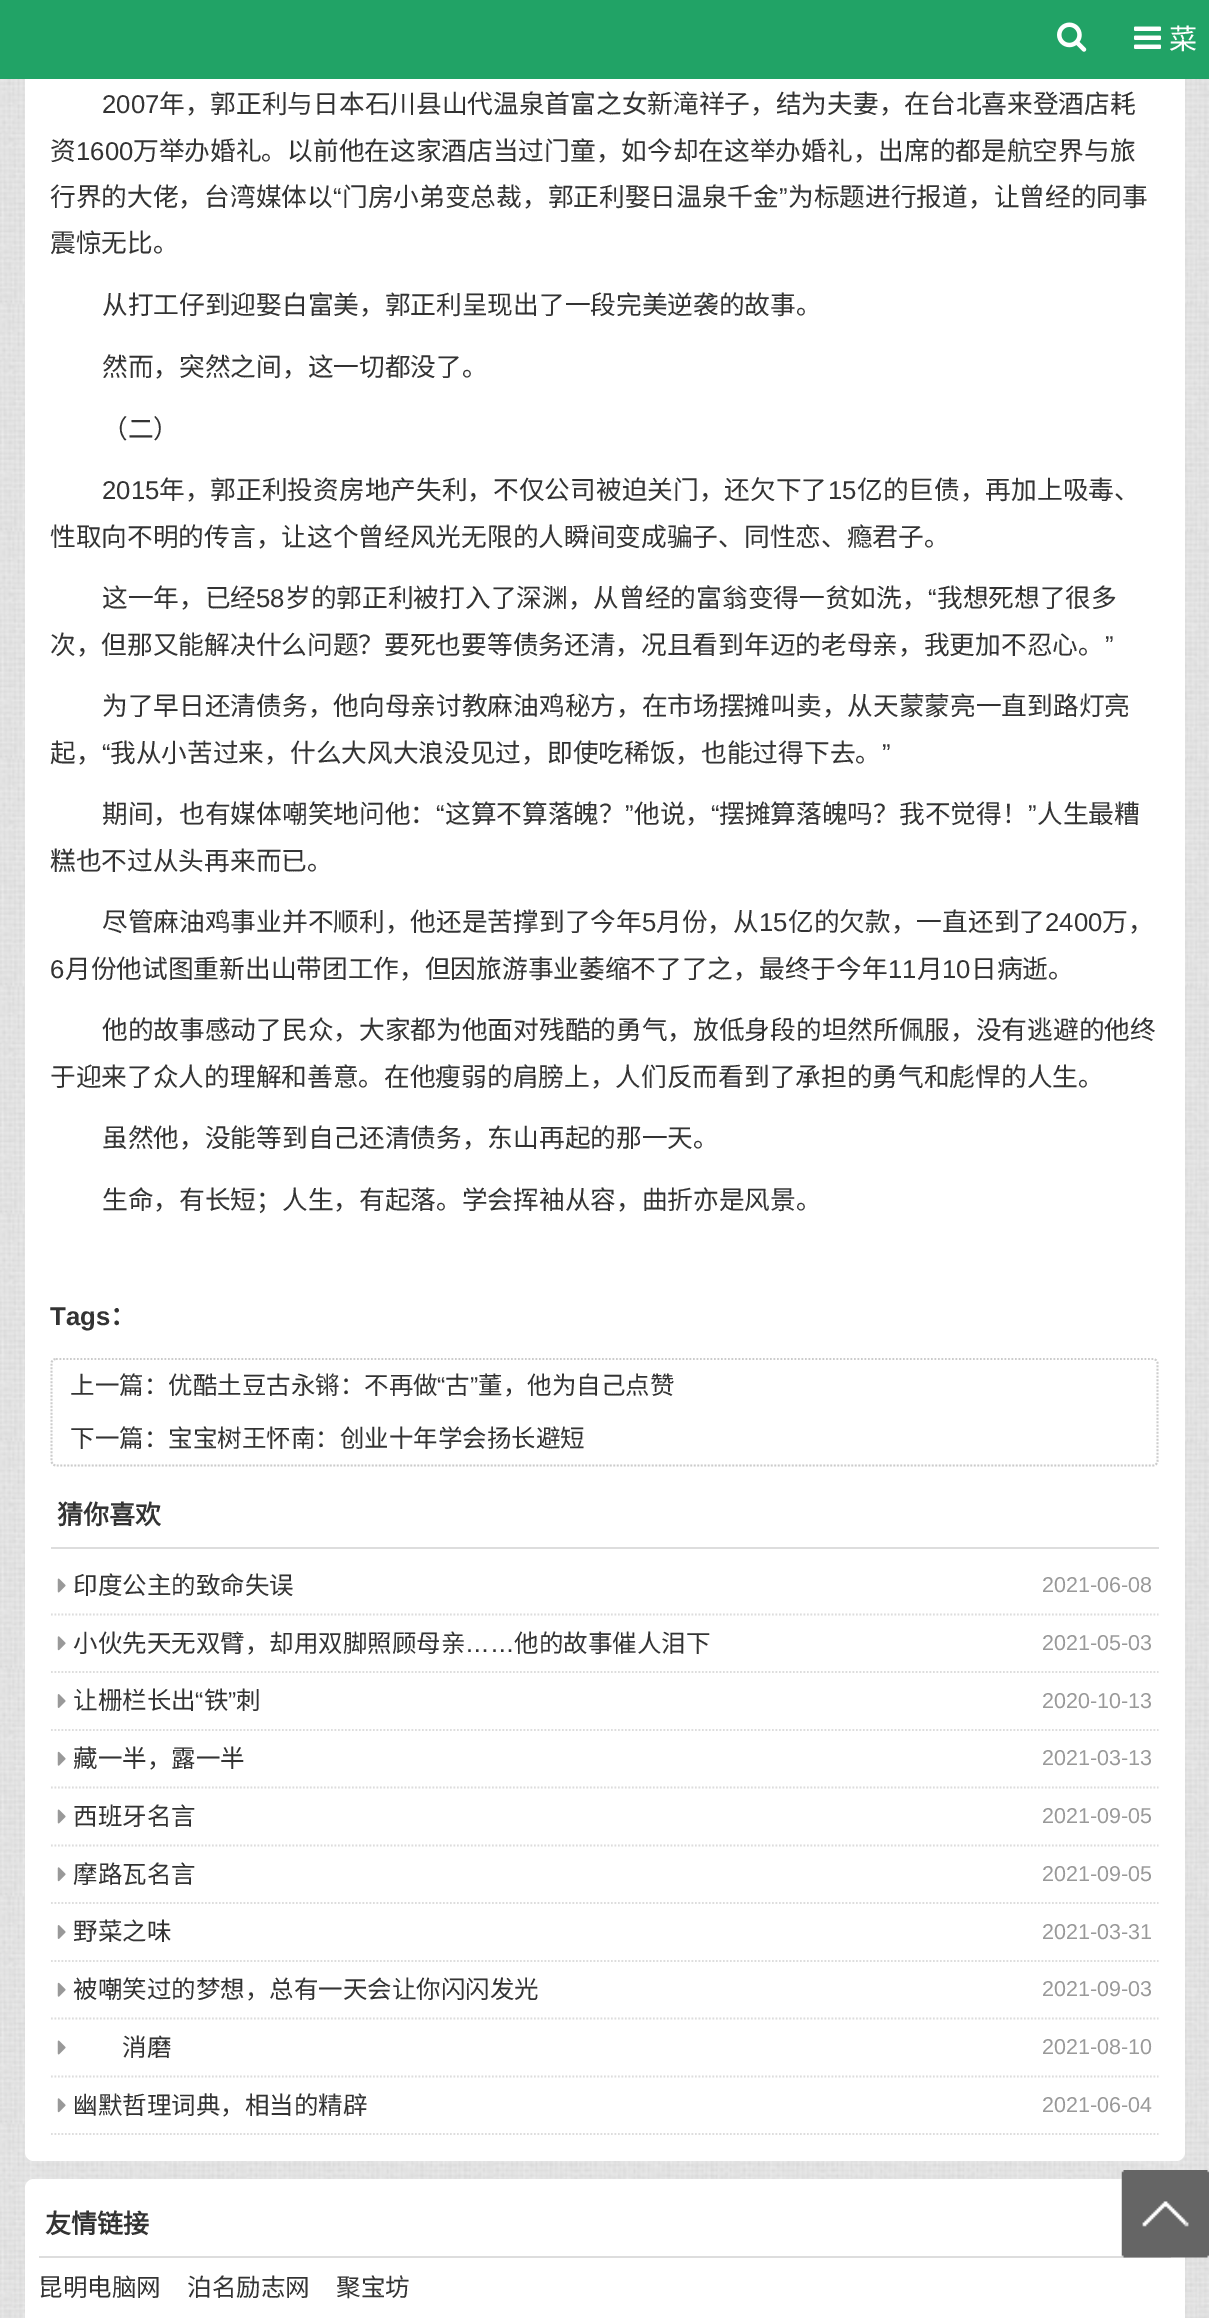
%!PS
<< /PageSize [1209 2318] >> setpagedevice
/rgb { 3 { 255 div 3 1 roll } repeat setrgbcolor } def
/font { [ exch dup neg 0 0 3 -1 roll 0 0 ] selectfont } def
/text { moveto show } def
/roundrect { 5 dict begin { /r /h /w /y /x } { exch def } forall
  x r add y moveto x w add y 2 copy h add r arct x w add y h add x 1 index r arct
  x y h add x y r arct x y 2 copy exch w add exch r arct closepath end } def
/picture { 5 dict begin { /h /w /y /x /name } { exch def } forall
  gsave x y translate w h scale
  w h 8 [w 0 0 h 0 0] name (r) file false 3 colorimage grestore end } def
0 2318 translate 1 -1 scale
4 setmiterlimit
255 255 255 rgb
0 0 1209 2318 rectfill
(img_01.rgb) 0 79 1209 2239 picture
25 -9 1160 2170 9 roundrect fill
33 163 102 rgb
0 0 1209 79 rectfill
(img_02.rgb) 1057 22 30 30 picture
(img_03.rgb) 1134 26 27 23 picture
204 204 204 rgb
1.8 setlinewidth
[1.75 1.75] 0 setdash
56 1359 moveto 1097 0 rlineto 2.5 0 4.5 2 4.5 4 rcurveto 0 98 rlineto 0 2.5 -2 4.5 -4.5 4.5 rcurveto -1097 0 rlineto -2.5 0 -4.5 -2 -4.5 -4.5 rcurveto 0 -98 rlineto 0 -2 2 -4 4.5 -4 rcurveto closepath stroke
221 221 221 rgb
51 1547 1108 2 rectfill
51 1614.5 moveto 1107.5 0 rlineto stroke
(img_04.rgb) 57 1578 9 15 picture
51 1672 moveto 1107.5 0 rlineto stroke
(img_05.rgb) 57 1636 9 15 picture
51 1730 moveto 1107.5 0 rlineto stroke
(img_06.rgb) 57 1694 9 14 picture
51 1787.5 moveto 1107.5 0 rlineto stroke
(img_07.rgb) 57 1751 9 15 picture
51 1845.5 moveto 1107.5 0 rlineto stroke
(img_04.rgb) 57 1809 9 15 picture
51 1903 moveto 1107.5 0 rlineto stroke
(img_05.rgb) 57 1867 9 15 picture
51 1961 moveto 1107.5 0 rlineto stroke
(img_06.rgb) 57 1925 9 14 picture
51 2018.5 moveto 1107.5 0 rlineto stroke
(img_07.rgb) 57 1982 9 15 picture
51 2076.5 moveto 1107.5 0 rlineto stroke
(img_04.rgb) 57 2040 9 15 picture
51 2134 moveto 1107.5 0 rlineto stroke
(img_05.rgb) 57 2098 9 15 picture
255 255 255 rgb
25 2179 1160 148 9 roundrect fill
221 221 221 rgb
39 2256 1132 2 rectfill
(img_08.rgb) 1121 2170 88 88 picture
/NotoSansCJKSC-Regular 28 font
255 255 255 rgb
(菜) 1169 49 text
/LiberationSans-Regular 25.7 font
51 51 51 rgb
(2007) 102 113 text
/NotoSansCJKSC-Regular 25.7 font
(年，郭正利与日本石川县山代温泉首富之女新滝祥子，结为夫妻，在台北喜来登酒店耗) 159 113 text
(资) 50 160 text
/LiberationSans-Regular 25.7 font
(1600) 76 160 text
/NotoSansCJKSC-Regular 25.7 font
(万举办婚礼。以前他在这家酒店当过门童，如今却在这举办婚礼，出席的都是航空界与旅) 133 160 text
(行界的大佬，台湾媒体以) 50 206 text
/LiberationSans-Regular 25.7 font
(“) 333 206 text
/NotoSansCJKSC-Regular 25.7 font
(门房小弟变总裁，郭正利娶日温泉千金) 342 206 text
/LiberationSans-Regular 25.7 font
(”) 779 206 text
/NotoSansCJKSC-Regular 25.7 font
(为标题进行报道，让曾经的同事) 788 206 text
(震惊无比。) 50 252 text
(从打工仔到迎娶白富美，郭正利呈现出了一段完美逆袭的故事。) 102 314 text
(然而，突然之间，这一切都没了。) 102 376 text
(（二）) 102 438 text
/LiberationSans-Regular 25.7 font
(2015) 102 499 text
/NotoSansCJKSC-Regular 25.7 font
(年，郭正利投资房地产失利，不仅公司被迫关门，还欠下了) 159 499 text
/LiberationSans-Regular 25.7 font
(15) 828 499 text
/NotoSansCJKSC-Regular 25.7 font
(亿的巨债，再加上吸毒、) 857 499 text
(性取向不明的传言，让这个曾经风光无限的人瞬间变成骗子、同性恋、瘾君子。) 50 546 text
(这一年，已经) 102 607 text
/LiberationSans-Regular 25.7 font
(58) 256 607 text
/NotoSansCJKSC-Regular 25.7 font
(岁的郭正利被打入了深渊，从曾经的富翁变得一贫如洗，) 285 607 text
/LiberationSans-Regular 25.7 font
(“) 928 607 text
/NotoSansCJKSC-Regular 25.7 font
(我想死想了很多) 937 607 text
(次，但那又能解决什么问题？要死也要等债务还清，况且看到年迈的老母亲，我更加不忍心。) 50 654 text
/LiberationSans-Regular 25.7 font
(”) 1105 654 text
/NotoSansCJKSC-Regular 25.7 font
(为了早日还清债务，他向母亲讨教麻油鸡秘方，在市场摆摊叫卖，从天蒙蒙亮一直到路灯亮) 102 715 text
(起，) 50 762 text
/LiberationSans-Regular 25.7 font
(“) 102 762 text
/NotoSansCJKSC-Regular 25.7 font
(我从小苦过来，什么大风大浪没见过，即使吃稀饭，也能过得下去。) 110 762 text
/LiberationSans-Regular 25.7 font
(”) 882 762 text
/NotoSansCJKSC-Regular 25.7 font
(期间，也有媒体嘲笑地问他：) 102 823 text
/LiberationSans-Regular 25.7 font
(“) 436 823 text
/NotoSansCJKSC-Regular 25.7 font
(这算不算落魄？) 445 823 text
/LiberationSans-Regular 25.7 font
(”) 625 823 text
/NotoSansCJKSC-Regular 25.7 font
(他说，) 634 823 text
/LiberationSans-Regular 25.7 font
(“) 711 823 text
/NotoSansCJKSC-Regular 25.7 font
(摆摊算落魄吗？我不觉得！) 719 823 text
/LiberationSans-Regular 25.7 font
(”) 1028 823 text
/NotoSansCJKSC-Regular 25.7 font
(人生最糟) 1037 823 text
(糕也不过从头再来而已。) 50 870 text
(尽管麻油鸡事业并不顺利，他还是苦撑到了今年) 102 931 text
/LiberationSans-Regular 25.7 font
(5) 642 931 text
/NotoSansCJKSC-Regular 25.7 font
(月份，从) 656 931 text
/LiberationSans-Regular 25.7 font
(15) 759 931 text
/NotoSansCJKSC-Regular 25.7 font
(亿的欠款，一直还到了) 788 931 text
/LiberationSans-Regular 25.7 font
(2400) 1045 931 text
/NotoSansCJKSC-Regular 25.7 font
(万，) 1102 931 text
/LiberationSans-Regular 25.7 font
(6) 50 978 text
/NotoSansCJKSC-Regular 25.7 font
(月份他试图重新出山带团工作，但因旅游事业萎缩不了了之，最终于今年) 65 978 text
/LiberationSans-Regular 25.7 font
(11) 888 978 text
/NotoSansCJKSC-Regular 25.7 font
(月) 917 978 text
/LiberationSans-Regular 25.7 font
(10) 942 978 text
/NotoSansCJKSC-Regular 25.7 font
(日病逝。) 971 978 text
(他的故事感动了民众，大家都为他面对残酷的勇气，放低身段的坦然所佩服，没有逃避的他终) 102 1039 text
(于迎来了众人的理解和善意。在他瘦弱的肩膀上，人们反而看到了承担的勇气和彪悍的人生。) 50 1086 text
(虽然他，没能等到自己还清债务，东山再起的那一天。) 102 1147 text
(生命，有长短；人生，有起落。学会挥袖从容，曲折亦是风景。) 102 1209 text
/LiberationSans-Bold 25.7 font
(Tags) 50 1325 text
/NotoSansCJKSC-Bold 25.7 font
(：) 110 1325 text
/NotoSansCJKSC-Regular 24.5 font
(上一篇：优酷土豆古永锵：不再做) 70 1394 text
/LiberationSans-Regular 24.5 font
(“) 437 1394 text
/NotoSansCJKSC-Regular 24.5 font
(古) 445 1394 text
/LiberationSans-Regular 24.5 font
(”) 470 1394 text
/NotoSansCJKSC-Regular 24.5 font
(董，他为自己点赞) 478 1394 text
(下一篇：宝宝树王怀南：创业十年学会扬长避短) 70 1447 text
/NotoSansCJKSC-Bold 26 font
(猜你喜欢) 57 1524 text
/NotoSansCJKSC-Regular 24.5 font
(印度公主的致命失误) 73 1594 text
/LiberationSans-Regular 21.5 font
153 153 153 rgb
(2021-06-08) 1042 1592 text
/NotoSansCJKSC-Regular 24.5 font
51 51 51 rgb
(小伙先天无双臂，却用双脚照顾母亲) 73 1652 text
/LiberationSans-Regular 24.5 font
(……) 465 1652 text
/NotoSansCJKSC-Regular 24.5 font
(他的故事催人泪下) 514 1652 text
/LiberationSans-Regular 21.5 font
153 153 153 rgb
(2021-05-03) 1042 1650 text
/NotoSansCJKSC-Regular 24.5 font
51 51 51 rgb
(让栅栏长出) 73 1709 text
/LiberationSans-Regular 24.5 font
(“) 195 1709 text
/NotoSansCJKSC-Regular 24.5 font
(铁) 204 1709 text
/LiberationSans-Regular 24.5 font
(”) 228 1709 text
/NotoSansCJKSC-Regular 24.5 font
(刺) 236 1709 text
/LiberationSans-Regular 21.5 font
153 153 153 rgb
(2020-10-13) 1042 1708 text
/NotoSansCJKSC-Regular 24.5 font
51 51 51 rgb
(藏一半，露一半) 73 1767 text
/LiberationSans-Regular 21.5 font
153 153 153 rgb
(2021-03-13) 1042 1765 text
/NotoSansCJKSC-Regular 24.5 font
51 51 51 rgb
(西班牙名言) 73 1825 text
/LiberationSans-Regular 21.5 font
153 153 153 rgb
(2021-09-05) 1042 1823 text
/NotoSansCJKSC-Regular 24.5 font
51 51 51 rgb
(摩路瓦名言) 73 1883 text
/LiberationSans-Regular 21.5 font
153 153 153 rgb
(2021-09-05) 1042 1881 text
/NotoSansCJKSC-Regular 24.5 font
51 51 51 rgb
(野菜之味) 73 1940 text
/LiberationSans-Regular 21.5 font
153 153 153 rgb
(2021-03-31) 1042 1939 text
/NotoSansCJKSC-Regular 24.5 font
51 51 51 rgb
(被嘲笑过的梦想，总有一天会让你闪闪发光) 73 1998 text
/LiberationSans-Regular 21.5 font
153 153 153 rgb
(2021-09-03) 1042 1996 text
/NotoSansCJKSC-Regular 24.5 font
51 51 51 rgb
(消磨) 122 2056 text
/LiberationSans-Regular 21.5 font
153 153 153 rgb
(2021-08-10) 1042 2054 text
/NotoSansCJKSC-Regular 24.5 font
51 51 51 rgb
(幽默哲理词典，相当的精辟) 73 2114 text
/LiberationSans-Regular 21.5 font
153 153 153 rgb
(2021-06-04) 1042 2112 text
/NotoSansCJKSC-Bold 26 font
51 51 51 rgb
(友情链接) 45 2233 text
/NotoSansCJKSC-Regular 24.5 font
(昆明电脑网) 38 2296 text
(泊名励志网) 187 2296 text
(聚宝坊) 336 2296 text
showpage
